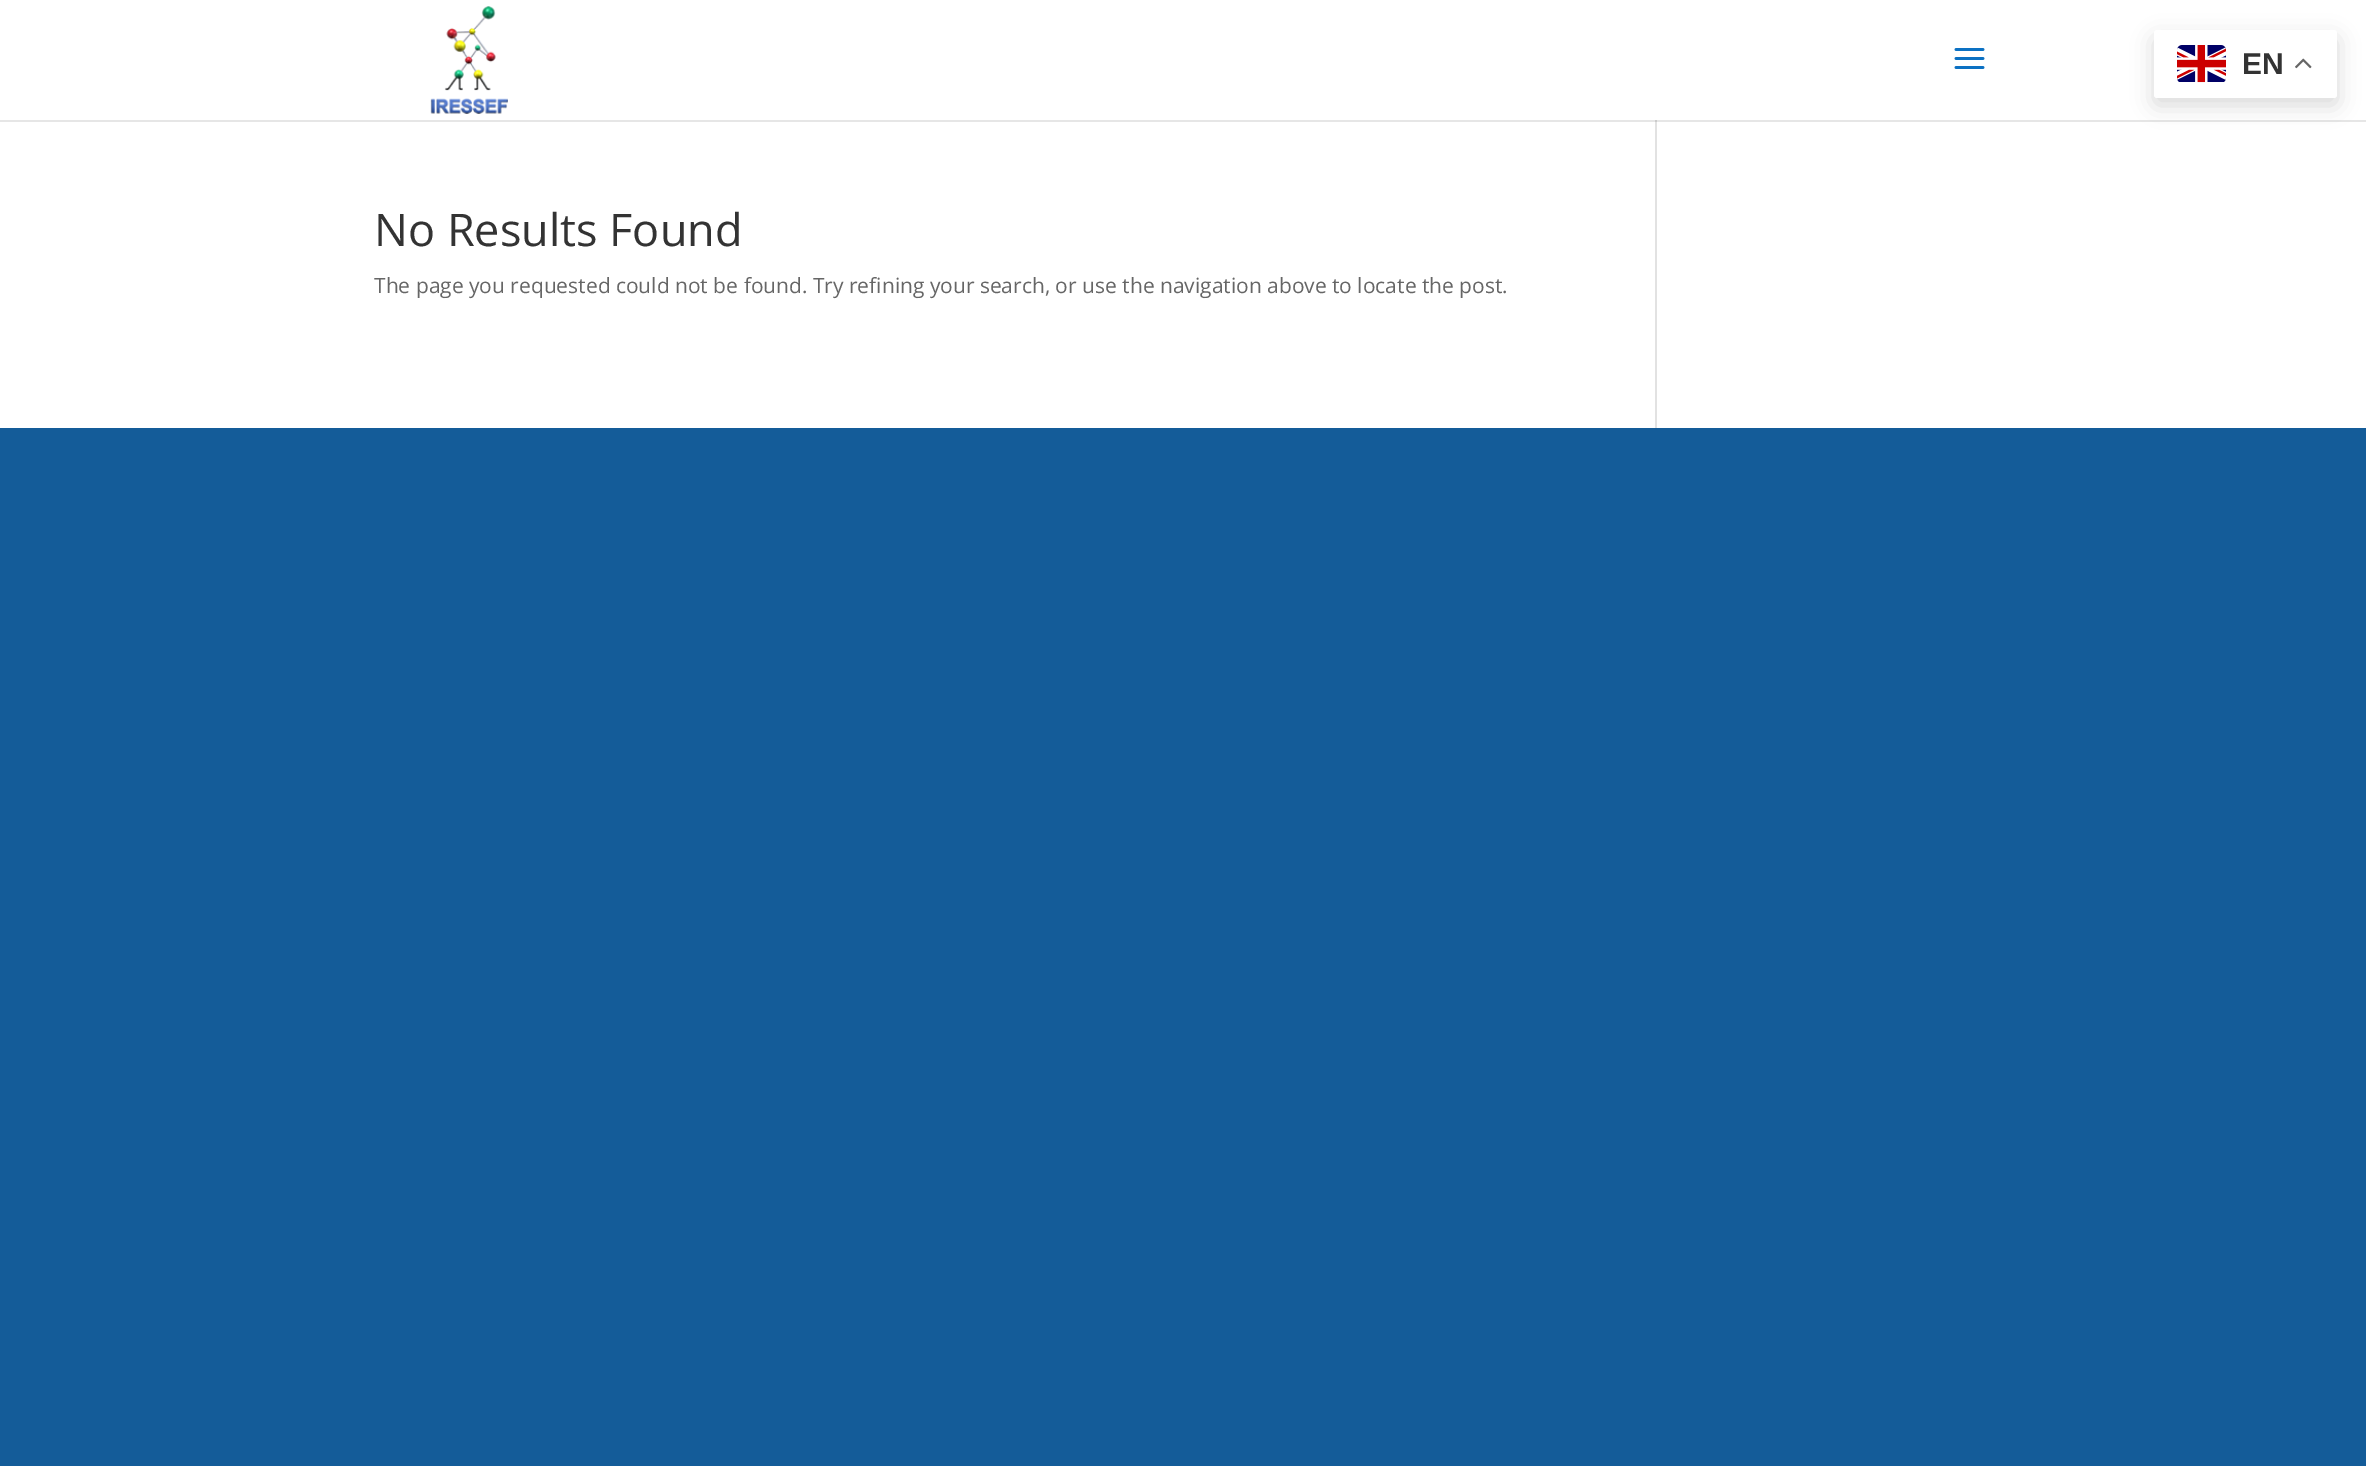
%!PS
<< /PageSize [2366 1466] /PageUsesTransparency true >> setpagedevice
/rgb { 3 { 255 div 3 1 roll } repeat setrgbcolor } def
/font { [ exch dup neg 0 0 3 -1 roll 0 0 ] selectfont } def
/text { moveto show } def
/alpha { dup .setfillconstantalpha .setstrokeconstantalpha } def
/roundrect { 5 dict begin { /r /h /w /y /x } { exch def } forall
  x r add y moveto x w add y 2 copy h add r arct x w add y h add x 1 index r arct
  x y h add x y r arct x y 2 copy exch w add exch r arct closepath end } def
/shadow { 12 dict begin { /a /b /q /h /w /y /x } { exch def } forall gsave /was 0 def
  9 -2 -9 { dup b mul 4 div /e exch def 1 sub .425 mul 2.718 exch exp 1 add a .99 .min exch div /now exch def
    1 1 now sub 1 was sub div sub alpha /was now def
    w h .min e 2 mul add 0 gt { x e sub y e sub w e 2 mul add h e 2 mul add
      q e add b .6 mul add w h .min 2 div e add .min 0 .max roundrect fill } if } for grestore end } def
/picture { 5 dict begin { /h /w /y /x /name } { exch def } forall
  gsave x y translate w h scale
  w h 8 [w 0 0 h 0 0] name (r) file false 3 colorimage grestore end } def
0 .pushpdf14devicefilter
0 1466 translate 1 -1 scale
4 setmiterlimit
20 92 153 rgb
0 0 2366 1466 rectfill
255 255 255 rgb
0 0 2366 120 rectfill
0 122 2366 306 rectfill
230 230 230 rgb
0 120 2366 2 rectfill
0 0 0 rgb
2154 38 183 67 3 11 0.15 shadow
255 255 255 rgb
2154 30 183 68 3 roundrect fill
(img_01.rgb) 2177 45 49 38 picture
(img_02.rgb) 2295 58 17 11 picture
(img_03.rgb) 430 6 78 108 picture
(img_04.rgb) 1954 48 31 21 picture
226 226 226 rgb
1655 120 2 308 rectfill
203 203 203 rgb
1655 120 2 2 rectfill
/LiberationSans-Bold 30 font
51 51 51 rgb
(EN) 2242 74 text
/OpenSans-Regular 45 font
(No Results Found) 374 246 text
/OpenSans-Regular 21 font
102 102 102 rgb
(The page you requested could not be found. Try refining your search, or use the navigation above to locate the post.) 374 293 text
.poppdf14devicefilter showpage
